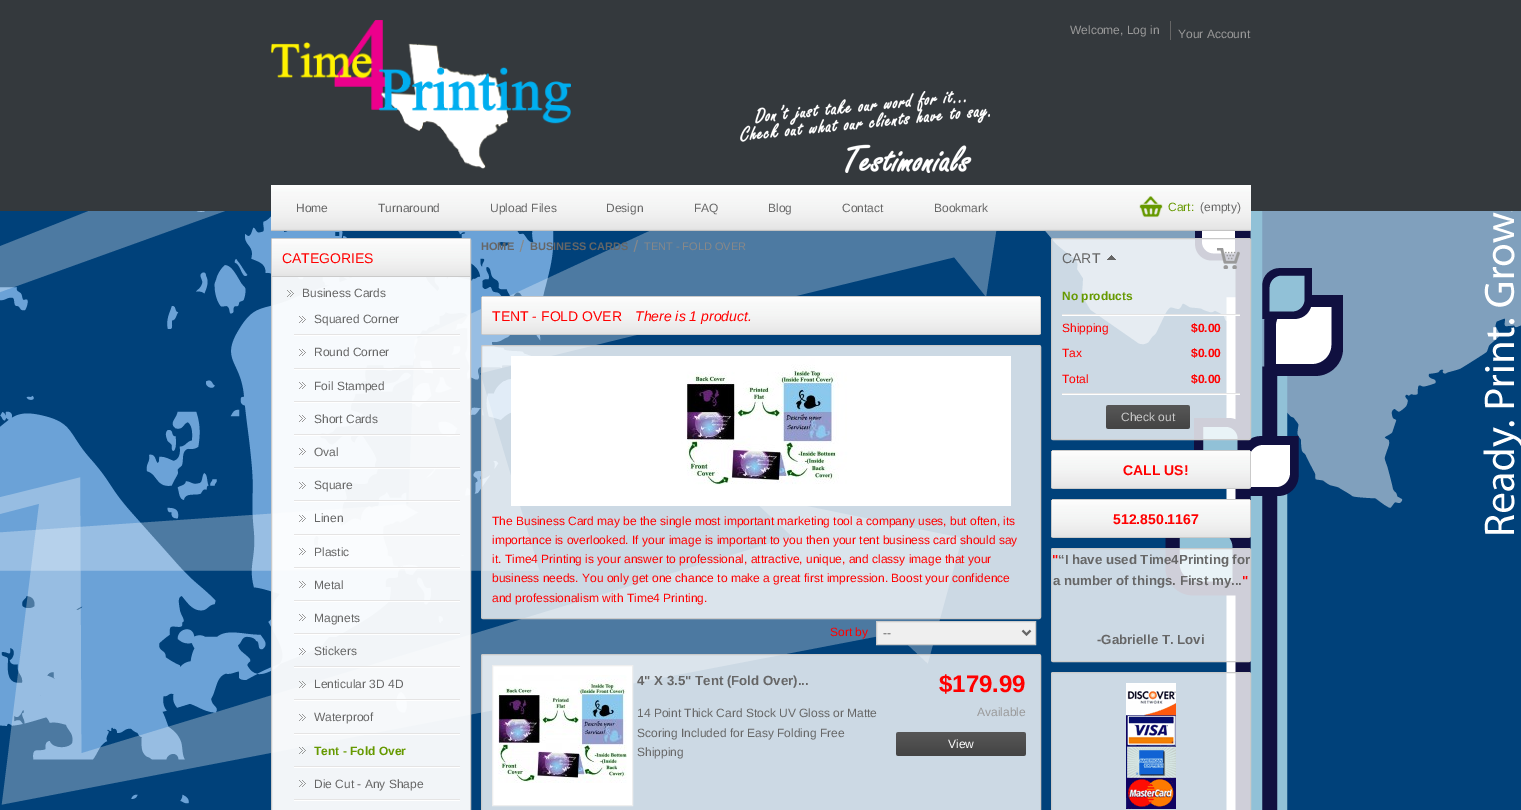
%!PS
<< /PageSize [1521 810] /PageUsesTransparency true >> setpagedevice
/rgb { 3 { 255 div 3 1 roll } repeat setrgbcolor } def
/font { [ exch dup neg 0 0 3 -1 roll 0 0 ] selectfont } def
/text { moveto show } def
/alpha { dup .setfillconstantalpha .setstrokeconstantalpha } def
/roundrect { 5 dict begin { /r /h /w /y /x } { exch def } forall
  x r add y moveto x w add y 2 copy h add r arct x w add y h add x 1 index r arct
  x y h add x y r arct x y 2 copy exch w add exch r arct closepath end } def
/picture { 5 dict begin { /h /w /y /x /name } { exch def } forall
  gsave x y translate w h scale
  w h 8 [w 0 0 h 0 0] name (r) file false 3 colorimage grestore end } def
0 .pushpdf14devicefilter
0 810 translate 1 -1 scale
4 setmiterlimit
255 255 255 rgb
0 0 1521 810 rectfill
(img_01.rgb) 0 211 1521 599 picture
52 57 61 rgb
0 0 1521 211 rectfill
(img_02.rgb) 271 20 300 149 picture
(img_03.rgb) 740 91 250 82 picture
102 102 102 rgb
1170 21 1 19 rectfill
(img_05.rgb) 271 185 980 46 picture
(img_04.rgb) 1139 196 24 22 picture
0.95 alpha
255 255 255 rgb
271.5 238.5 199 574 1.5 roundrect fill
1 alpha
202 202 202 rgb
271.5 238.5 199 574 1.5 roundrect stroke
(img_06.rgb) 272 239 198 38 picture
(img_07.rgb) 287 290 7 7 picture
(img_08.rgb) 294 334 166 2 picture
(img_09.rgb) 299 316 7 7 picture
(img_08.rgb) 294 368 166 2 picture
(img_09.rgb) 299 349 7 7 picture
(img_08.rgb) 294 401 166 2 picture
(img_09.rgb) 299 382 7 7 picture
(img_08.rgb) 294 434 166 2 picture
(img_09.rgb) 299 415 7 7 picture
(img_08.rgb) 294 467 166 2 picture
(img_09.rgb) 299 448 7 7 picture
(img_08.rgb) 294 500 166 2 picture
(img_09.rgb) 299 482 7 7 picture
(img_08.rgb) 294 534 166 2 picture
(img_10.rgb) 299 515 7 7 picture
(img_08.rgb) 294 567 166 2 picture
(img_10.rgb) 299 548 7 7 picture
(img_08.rgb) 294 600 166 2 picture
(img_09.rgb) 299 581 7 7 picture
(img_08.rgb) 294 633 166 2 picture
(img_09.rgb) 299 614 7 7 picture
(img_08.rgb) 294 666 166 2 picture
(img_11.rgb) 299 648 7 7 picture
(img_08.rgb) 294 699 166 2 picture
(img_12.rgb) 299 681 7 7 picture
(img_08.rgb) 294 733 166 2 picture
(img_13.rgb) 299 714 7 7 picture
(img_08.rgb) 294 766 166 2 picture
(img_14.rgb) 299 747 7 7 picture
(img_08.rgb) 294 799 166 2 picture
(img_07.rgb) 299 780 7 7 picture
(img_15.rgb) 519 240 5 12 picture
(img_16.rgb) 633 240 5 12 picture
(img_17.rgb) 481 297 560 38 picture
482 296 558 1 rectfill
1040 297 1 37 rectfill
481 297 1 37 rectfill
0.8 alpha
255 255 255 rgb
481.5 345.5 559 273 1.5 roundrect fill
1 alpha
202 202 202 rgb
481.5 345.5 559 273 1.5 roundrect stroke
(img_18.rgb) 511 356 500 150 picture
239 239 239 rgb
876.5 621.5 moveto 159 0 rlineto 0 23 rlineto -159 0 rlineto closepath gsave fill grestore
204 204 204 rgb
stroke
102 102 102 rgb
2 setlinewidth
1022.5 630.5 moveto 4 4 rlineto 4 -4 rlineto stroke
0.8 alpha
255 255 255 rgb
481.5 654.5 559 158 1.5 roundrect fill
1 alpha
202 202 202 rgb
1 setlinewidth
481.5 654.5 559 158 1.5 roundrect stroke
255 255 255 rgb
492.5 665.5 moveto 140 0 rlineto 0 140 rlineto -140 0 rlineto closepath gsave fill grestore
238 238 238 rgb
stroke
(img_19.rgb) 498 675 129 108 picture
(img_20.rgb) 896 732 130 24 picture
0.8 alpha
255 255 255 rgb
1051.5 238.5 199 201 1.5 roundrect fill
1 alpha
202 202 202 rgb
1051.5 238.5 199 201 1.5 roundrect stroke
(img_21.rgb) 1217 248 23 21 picture
(img_22.rgb) 1107 255 9 5 picture
(img_23.rgb) 1062 314 178 2 picture
(img_23.rgb) 1062 393 178 2 picture
(img_24.rgb) 1106 405 84 24 picture
(img_25.rgb) 1051 451 200 38 picture
1052 450 198 1 rectfill
1250 451 1 37 rectfill
1051 451 1 37 rectfill
(img_26.rgb) 1051 500 200 38 picture
1052 499 198 1 rectfill
1250 500 1 37 rectfill
1051 500 1 37 rectfill
0.8 alpha
255 255 255 rgb
1051.5 548.5 199 113 1.5 roundrect fill
1 alpha
202 202 202 rgb
1051.5 548.5 199 113 1.5 roundrect stroke
0.8 alpha
255 255 255 rgb
1051.5 672.5 199 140 1.5 roundrect fill
1 alpha
202 202 202 rgb
1051.5 672.5 199 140 1.5 roundrect stroke
(img_27.rgb) 1126 683 50 126 picture
/LiberationSans-Regular 12 font
153 153 153 rgb
(Welcome, Log in) 1070 34 text
(Your Account) 1178 38 text
102 153 0 rgb
(Cart:) 1168 211 text
102 102 102 rgb
(\(empty\)) 1200 211 text
(Home) 296 212 text
(Turnaround) 378 212 text
(Upload Files) 490 212 text
(Design) 606 212 text
(FAQ) 694 212 text
(Blog) 768 212 text
(Contact) 842 212 text
(Bookmark) 934 212 text
/LiberationSans-Regular 14 font
255 0 0 rgb
(CATEGORIES) 282 263 text
/LiberationSans-Regular 12 font
102 102 102 rgb
(Business Cards) 302 297 text
(Squared Corner) 314 323 text
(Round Corner) 314 356 text
(Foil Stamped) 314 390 text
(Short Cards) 314 423 text
(Oval) 314 456 text
(Square) 314 489 text
(Linen) 314 522 text
(Plastic) 314 556 text
(Metal) 314 589 text
(Magnets) 314 622 text
(Stickers) 314 655 text
(Lenticular 3D 4D) 314 688 text
(Waterproof) 314 721 text
/LiberationSans-Bold 12 font
102 153 0 rgb
(Tent - Fold Over) 314 755 text
/LiberationSans-Regular 12 font
102 102 102 rgb
(Die Cut - Any Shape) 314 788 text
/LiberationSans-Bold 11 font
(HOME) 481 250 text
(BUSINESS CARDS) 530 250 text
/LiberationSans-Regular 11 font
136 136 136 rgb
(TENT - FOLD OVER) 644 250 text
/LiberationSans-Regular 14 font
255 0 0 rgb
(TENT - FOLD OVER) 492 321 text
/LiberationSans-Italic 14 font
(There is 1 product.) 635 321 text
/LiberationSans-Regular 12 font
(The Business Card may be the single most important marketing tool a company uses, but often, its) 492 525 text
(importance is overlooked. If your image is important to you then your tent business card should say) 492 544 text
(it. Time4 Printing is your answer to professional, attractive, unique, and classy image that your) 492 563 text
(business needs. You only get one chance to make a great first impression. Boost your confidence) 492 582 text
(and professionalism with Time4 Printing.) 492 602 text
(Sort by) 830 636 text
102 102 102 rgb
(--) 883 637 text
/LiberationSans-Bold 13.25 font
(4" X 3.5" Tent \(Fold Over\)...) 637 685 text
/LiberationSans-Regular 12 font
(14 Point Thick Card Stock UV Gloss or Matte) 637 717 text
(Scoring Included for Easy Folding Free) 637 737 text
(Shipping) 637 756 text
/LiberationSans-Bold 24 font
255 0 0 rgb
($179.99) 939 692 text
/LiberationSans-Regular 12 font
153 153 153 rgb
(Available) 977 716 text
255 255 255 rgb
(View) 948 748 text
/LiberationSans-Regular 14 font
102 102 102 rgb
(CART) 1062 263 text
/LiberationSans-Bold 12 font
102 153 0 rgb
(No products) 1062 300 text
/LiberationSans-Regular 12 font
255 0 0 rgb
(Shipping) 1062 332 text
/LiberationSans-Bold 12 font
($0.00) 1191 332 text
/LiberationSans-Regular 12 font
(Tax) 1062 357 text
/LiberationSans-Bold 12 font
($0.00) 1191 357 text
/LiberationSans-Regular 12 font
(Total) 1062 383 text
/LiberationSans-Bold 12 font
($0.00) 1191 383 text
/LiberationSans-Regular 12 font
202 202 202 rgb
(Check out) 1121 421 text
/LiberationSans-Bold 14 font
255 0 0 rgb
(CALL US!) 1123 475 text
(512.850.1167) 1113 524 text
/LiberationSans-Bold 13.25 font
(") 1052 564 text
102 102 102 rgb
(“I have used Time4Printing for) 1058 564 text
(a number of things. First my...) 1053 585 text
255 0 0 rgb
(") 1242 585 text
102 102 102 rgb
(-Gabrielle T. Lovi) 1097 644 text
.poppdf14devicefilter showpage
